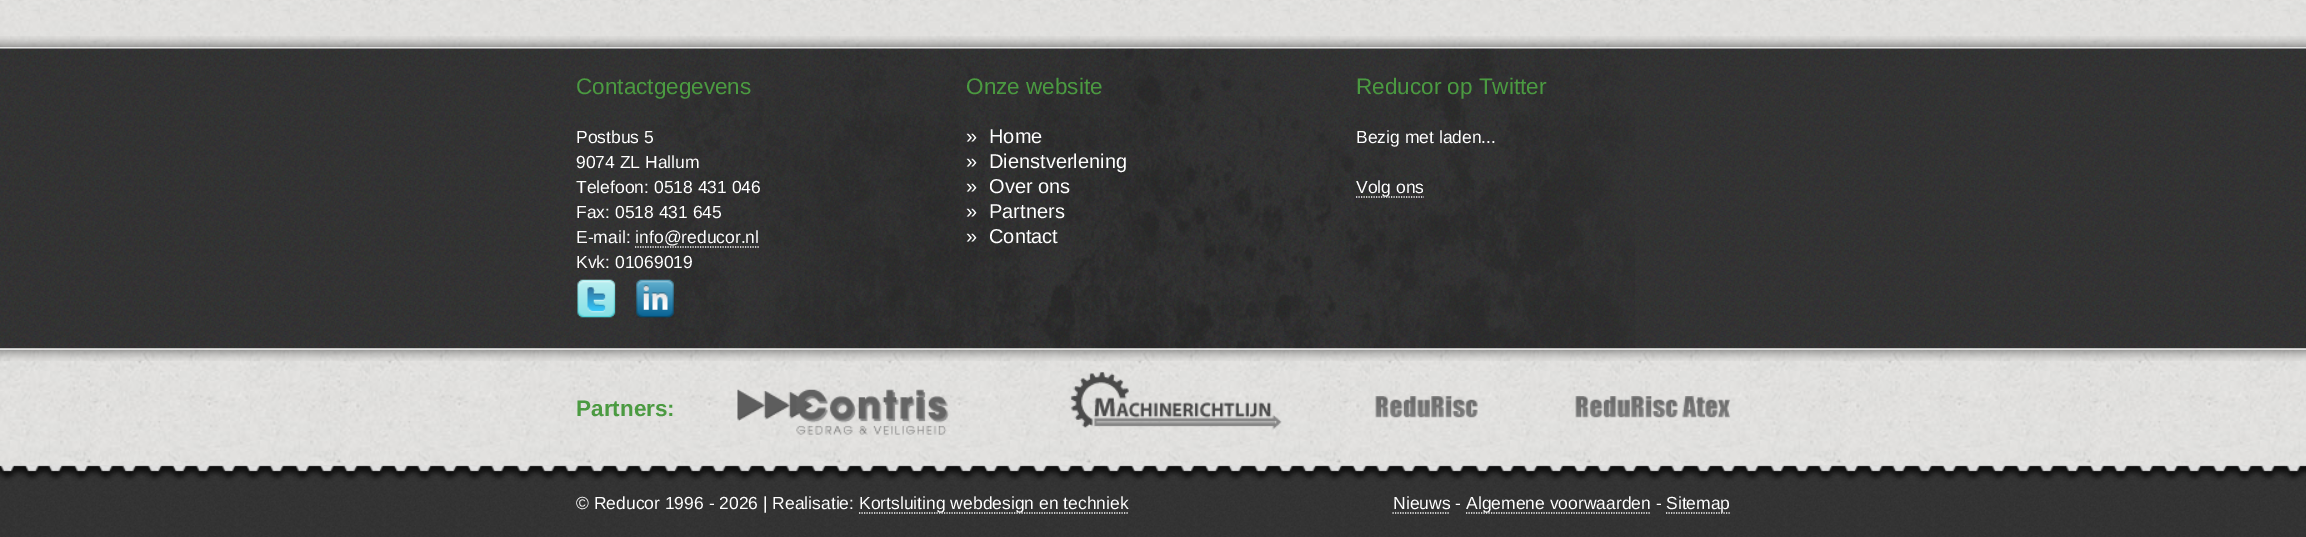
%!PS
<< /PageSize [2306 537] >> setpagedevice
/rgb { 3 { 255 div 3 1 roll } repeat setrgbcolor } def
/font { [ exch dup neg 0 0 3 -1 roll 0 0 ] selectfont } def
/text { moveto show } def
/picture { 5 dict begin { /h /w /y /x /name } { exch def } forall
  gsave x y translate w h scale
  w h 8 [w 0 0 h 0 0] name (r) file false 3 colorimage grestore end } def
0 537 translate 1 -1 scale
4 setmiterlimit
255 255 255 rgb
0 0 2306 537 rectfill
(img_01.rgb) 0 0 2306 465 picture
(img_02.rgb) 0 36 2306 13 picture
(img_03.rgb) 0 48 2306 301 picture
(img_04.rgb) 649 48 986 301 picture
1.2 setlinewidth
[1.25 1.25] 0 setdash
635 247 moveto 124 0 rlineto stroke
(img_05.rgb) 577 279 39 39 picture
(img_06.rgb) 636 279 38 39 picture
1356 197 moveto 68 0 rlineto stroke
(img_07.rgb) 0 348 2306 13 picture
(img_08.rgb) 737 389 212 46 picture
(img_09.rgb) 1069 371 213 59 picture
(img_10.rgb) 1375 396 103 22 picture
(img_11.rgb) 1575 396 156 22 picture
(img_12.rgb) 0 465 2306 72 picture
859 513 moveto 270 0 rlineto stroke
1392.5 513 moveto 57.5 0 rlineto stroke
1466 513 moveto 185 0 rlineto stroke
1666 513 moveto 65 0 rlineto stroke
/LiberationSans-Regular 22.5 font
75 154 65 rgb
(Contactgegevens) 576 94 text
/LiberationSans-Regular 17.5 font
255 255 255 rgb
(Postbus 5) 576 143 text
(9074 ZL Hallum) 576 168 text
(Telefoon: 0518 431 046) 576 193 text
(Fax: 0518 431 645) 576 218 text
(E-mail: info@reducor.nl) 576 243 text
(Kvk: 01069019) 576 268 text
/LiberationSans-Regular 22.5 font
75 154 65 rgb
(Onze website) 966 94 text
/LiberationSans-Regular 20 font
255 255 255 rgb
(») 966 143 text
(Home) 989 143 text
(») 966 168 text
(Dienstverlening) 989 168 text
(») 966 193 text
(Over ons) 989 193 text
(») 966 218 text
(Partners) 989 218 text
(») 966 243 text
(Contact) 989 243 text
/LiberationSans-Regular 22.5 font
75 154 65 rgb
(Reducor op Twitter) 1356 94 text
/LiberationSans-Regular 17.5 font
255 255 255 rgb
(Bezig met laden...) 1356 143 text
(Volg ons) 1356 193 text
/LiberationSans-Bold 22.5 font
75 154 65 rgb
(Partners:) 576 416 text
/LiberationSans-Regular 17.5 font
255 255 255 rgb
(© Reducor 1996 - 2026 | Realisatie:) 576 509 text
(Kortsluiting webdesign en techniek) 859 509 text
(Nieuws -) 1393 509 text
(Algemene voorwaarden -) 1466 509 text
(Sitemap) 1666 509 text
showpage
